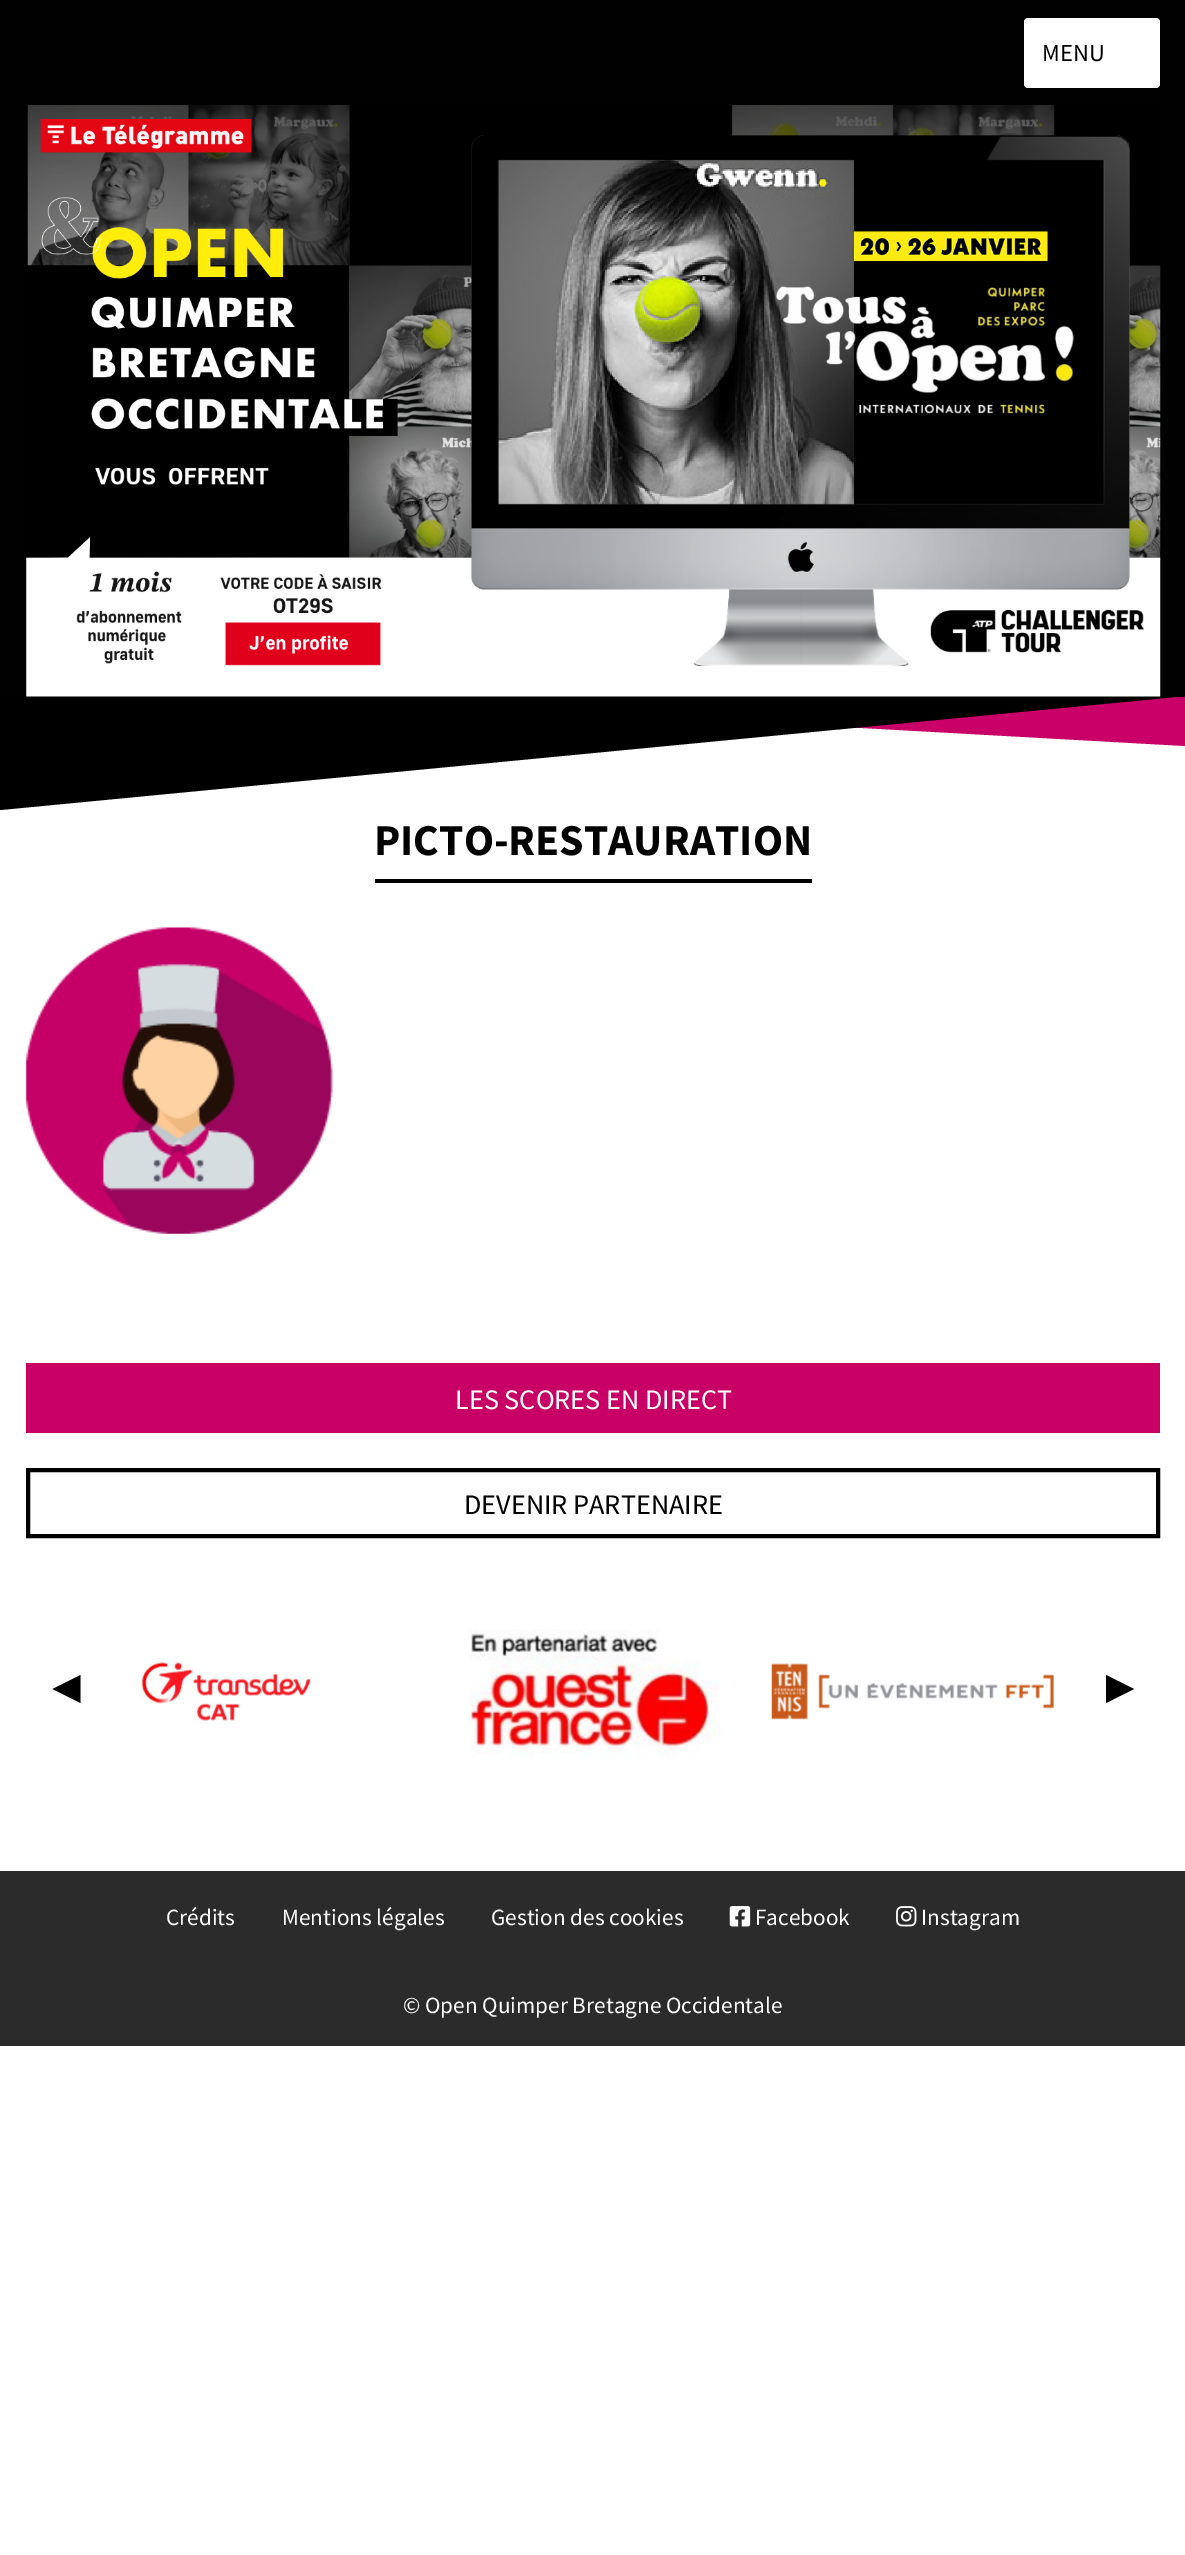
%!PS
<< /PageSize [1185 2555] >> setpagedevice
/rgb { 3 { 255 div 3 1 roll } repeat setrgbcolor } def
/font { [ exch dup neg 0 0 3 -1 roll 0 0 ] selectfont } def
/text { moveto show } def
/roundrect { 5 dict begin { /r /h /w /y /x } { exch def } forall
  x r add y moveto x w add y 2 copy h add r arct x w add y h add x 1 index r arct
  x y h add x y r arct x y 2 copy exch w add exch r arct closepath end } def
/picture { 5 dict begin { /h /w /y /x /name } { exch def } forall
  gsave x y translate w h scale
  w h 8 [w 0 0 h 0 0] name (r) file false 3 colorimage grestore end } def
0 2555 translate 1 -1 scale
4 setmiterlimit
255 255 255 rgb
0 0 1185 2555 rectfill
1 1 1 rgb
0 0 1185 697 rectfill
255 255 255 rgb
1024 18 136 70 4 roundrect fill
(img_01.rgb) 26 105 1135 592 picture
gsave
0 697 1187 113 rectclip
201 0 104 rgb
289 696 moveto 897 50 rlineto 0 -50 rlineto closepath fill
0 0 0 rgb
0 810 moveto 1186 -114 rlineto -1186 0 rlineto closepath fill
grestore
0 0 0 rgb
375 879 437 4 rectfill
(img_02.rgb) 26 927 307 307 picture
200 0 102 rgb
26 1363 1134 70 rectfill
1 1 1 rgb
4 setlinewidth
28 1470 1130 66 rectstroke
(img_03.rgb) 140 1661 171 63 picture
(img_04.rgb) 469 1629 252 133 picture
(img_05.rgb) 771 1663 283 57 picture
0 0 0 rgb
80.5 1675 moveto 0 28 rlineto -28 -14 rlineto closepath fill
1106 1703 moveto 0 -28 rlineto 28 14 rlineto closepath fill
43 43 43 rgb
0 1871 1185 175 rectfill
(img_06.rgb) 729 1906 22 21 picture
(img_07.rgb) 896 1906 21 21 picture
/SourceSansPro-Regular 24.5 font
0 0 0 rgb
(MENU) 1042 61 text
/SourceSansPro-Bold 44 font
(PICTO-RESTAURATION) 374 855 text
/SourceSansPro-Regular 28.25 font
255 255 255 rgb
(LES SCORES EN DIRECT) 455 1409 text
0 0 0 rgb
(DEVENIR PARTENAIRE) 464 1514 text
/SourceSansPro-Regular 23.25 font
255 255 255 rgb
(Crédits) 166 1925 text
(Mentions légales) 282 1925 text
(Gestion des cookies) 491 1925 text
(Facebook) 755 1925 text
(Instagram) 921 1925 text
(© Open Quimper Bretagne Occidentale) 403 2013 text
showpage
